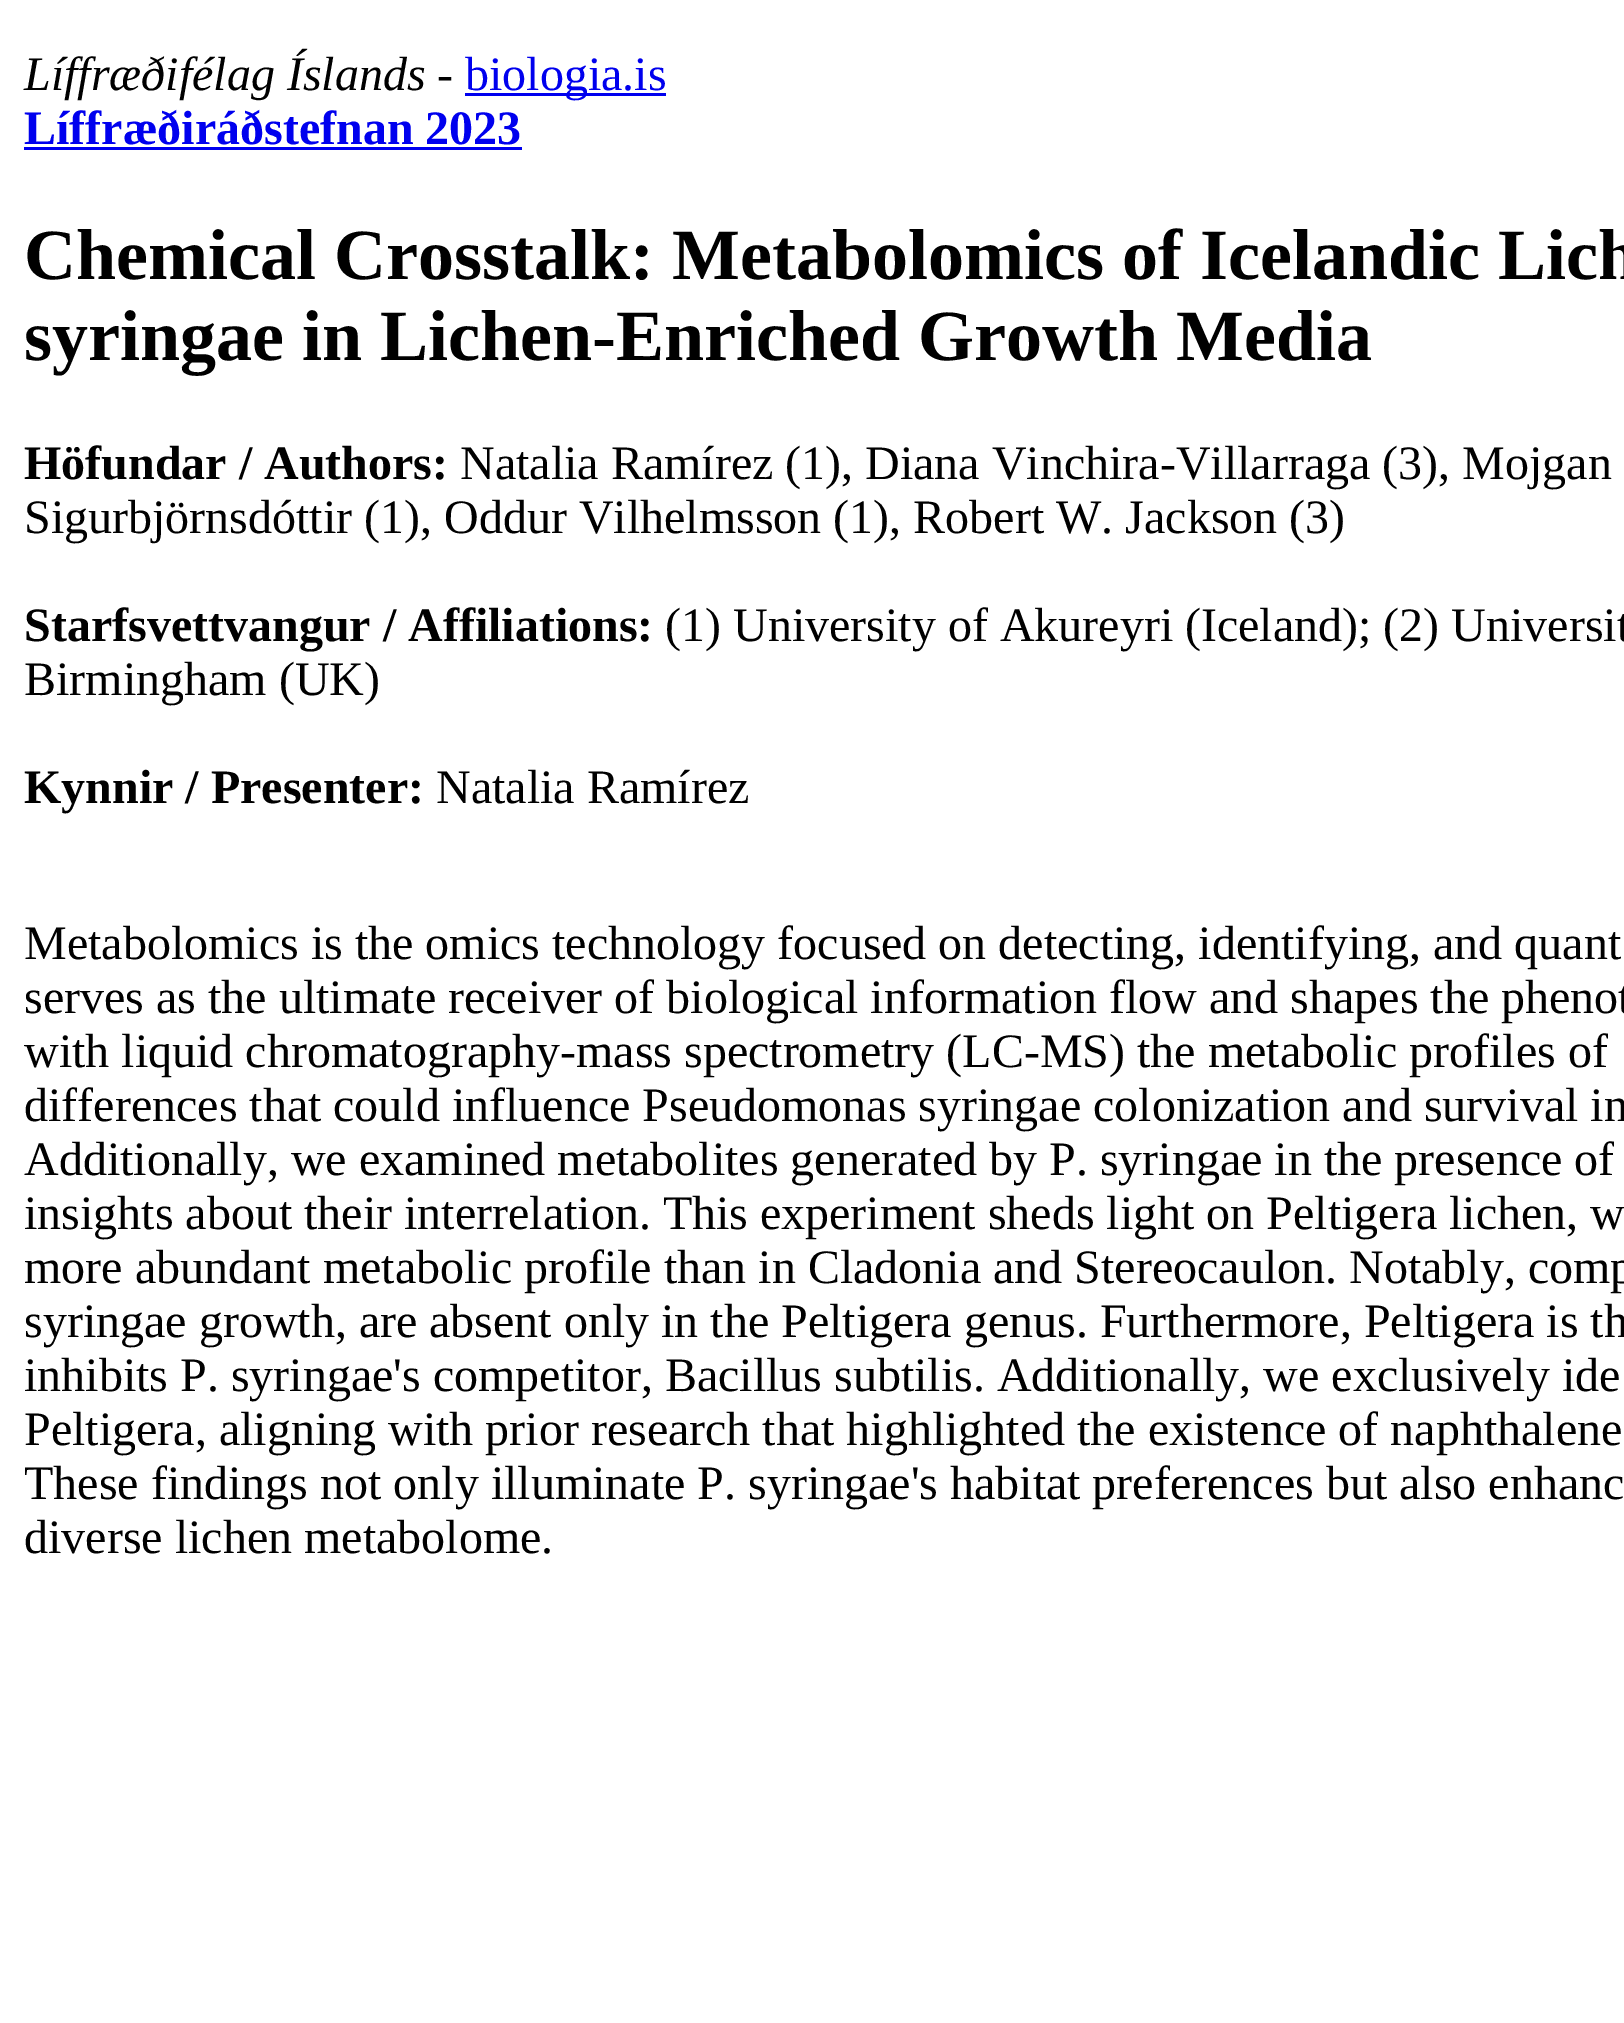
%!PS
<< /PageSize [1624 2023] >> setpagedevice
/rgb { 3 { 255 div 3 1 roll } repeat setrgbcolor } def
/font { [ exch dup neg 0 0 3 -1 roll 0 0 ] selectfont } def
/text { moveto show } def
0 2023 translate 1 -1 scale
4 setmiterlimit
255 255 255 rgb
0 0 1624 2023 rectfill
0 0 238 rgb
465 93 201 3 rectfill
24 147 498 3 rectfill
/LiberationSerif-Italic 48 font
0 0 0 rgb
(Líffræðifélag Íslands) 24 90 text
/LiberationSerif-Regular 48 font
(-) 437 90 text
0 0 238 rgb
(biologia.is) 465 90 text
/LiberationSerif-Bold 48 font
(Líffræðiráðstefnan 2023) 24 144 text
/LiberationSerif-Bold 72 font
0 0 0 rgb
(Chemical Crosstalk: Metabolomics of Icelandic Lich) 24 279 text
(syringae in Lichen-Enriched Growth Media) 24 360 text
/LiberationSerif-Bold 48 font
(Höfundar / Authors:) 24 479 text
/LiberationSerif-Regular 48 font
(Natalia Ramírez \(1\), Diana Vinchira-Villarraga \(3\), Mojgan) 460 479 text
(Sigurbjörnsdóttir \(1\), Oddur Vilhelmsson \(1\), Robert W. Jackson \(3\)) 24 533 text
/LiberationSerif-Bold 48 font
(Starfsvettvangur / Affiliations:) 24 641 text
/LiberationSerif-Regular 48 font
(\(1\) University of Akureyri \(Iceland\); \(2\) Universit) 665 641 text
(Birmingham \(UK\)) 24 695 text
/LiberationSerif-Bold 48 font
(Kynnir / Presenter:) 24 803 text
/LiberationSerif-Regular 48 font
(Natalia Ramírez) 436 803 text
(Metabolomics is the omics technology focused on detecting, identifying, and quant) 24 959 text
(serves as the ultimate receiver of biological information flow and shapes the phenot) 24 1013 text
(with liquid chromatography-mass spectrometry \(LC-MS\) the metabolic profiles of) 24 1067 text
(differences that could influence Pseudomonas syringae colonization and survival in) 24 1121 text
(Additionally, we examined metabolites generated by P. syringae in the presence of) 24 1175 text
(insights about their interrelation. This experiment sheds light on Peltigera lichen, w) 24 1229 text
(more abundant metabolic profile than in Cladonia and Stereocaulon. Notably, comp) 24 1283 text
(syringae growth, are absent only in the Peltigera genus. Furthermore, Peltigera is th) 24 1337 text
(inhibits P. syringae's competitor, Bacillus subtilis. Additionally, we exclusively ide) 24 1391 text
(Peltigera, aligning with prior research that highlighted the existence of naphthalene) 24 1445 text
(These findings not only illuminate P. syringae's habitat preferences but also enhanc) 24 1499 text
(diverse lichen metabolome.) 24 1553 text
showpage
